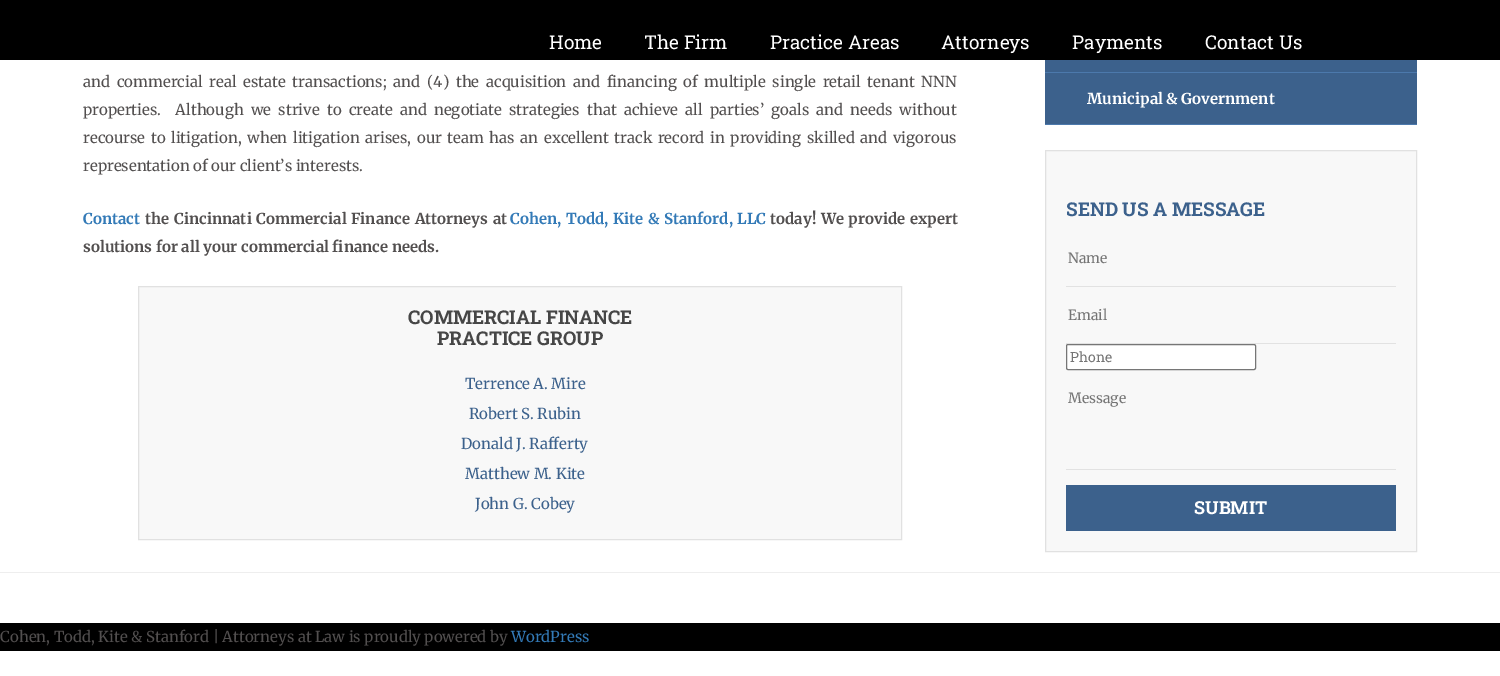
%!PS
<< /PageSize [1500 676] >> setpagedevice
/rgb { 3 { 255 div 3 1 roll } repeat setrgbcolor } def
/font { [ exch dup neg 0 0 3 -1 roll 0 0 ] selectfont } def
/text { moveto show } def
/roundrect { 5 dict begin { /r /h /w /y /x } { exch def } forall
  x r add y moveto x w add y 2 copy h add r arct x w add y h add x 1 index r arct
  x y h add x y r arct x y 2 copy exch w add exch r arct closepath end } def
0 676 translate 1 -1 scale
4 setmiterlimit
255 255 255 rgb
0 0 1500 676 rectfill
0 0 0 rgb
0 0 1500 60 rectfill
248 248 248 rgb
138.5 286.5 moveto 763 0 rlineto 0 253 rlineto -763 0 rlineto closepath gsave fill grestore
225 225 225 rgb
stroke
60 97 140 rgb
1045 60 372 64 rectfill
76 121 172 rgb
1045 72 372 1 rectfill
1045 124 372 1 rectfill
248 248 248 rgb
1045.5 150.5 moveto 371 0 rlineto 0 401 rlineto -371 0 rlineto closepath gsave fill grestore
225 225 225 rgb
stroke
226 226 226 rgb
1066 286 330 1 rectfill
1066 343 330 1 rectfill
255 255 255 rgb
1066.5 344.5 189 25 1.5 roundrect gsave fill grestore
118 118 118 rgb
stroke
226 226 226 rgb
1066 469 330 1 rectfill
60 97 140 rgb
1066 485 330 46 rectfill
238 238 238 rgb
0 572 1500 1 rectfill
0 0 0 rgb
0 623 1500 28 rectfill
/RobotoSlab-Regular 19 font
255 255 255 rgb
(Home) 549 49 text
(The Firm) 644 49 text
(Practice Areas) 770 49 text
(Attorneys) 941 49 text
(Payments) 1072 49 text
(Contact Us) 1205 49 text
/Merriweather-Regular 15 font
82 79 79 rgb
83 87 moveto 3.1 0 32 (and commercial real estate transactions; and \(4\) the acquisition and financing of multiple single retail tenant NNN) widthshow
83 115 moveto 3.6 0 32 (properties.  Although we strive to create and negotiate strategies that achieve all parties’ goals and needs without) widthshow
83 143 moveto 2 0 32 (recourse to litigation, when litigation arises, our team has an excellent track record in providing skilled and vigorous) widthshow
(representation of our client’s interests.) 83 171 text
/Merriweather-Bold 15 font
51 122 183 rgb
(Contact) 83 224 text
82 79 79 rgb
145 224 moveto 1 0 32 (the Cincinnati Commercial Finance Attorneys at) widthshow
51 122 183 rgb
510 224 moveto 1 0 32 (Cohen, Todd, Kite & Stanford, LLC) widthshow
82 79 79 rgb
770 224 moveto 1 0 32 (today! We provide expert) widthshow
(solutions for all your commercial finance needs.) 83 252 text
/RobotoSlab-Bold 19 font
70 70 70 rgb
(COMMERCIAL FINANCE) 408 324 text
(PRACTICE GROUP) 437 345 text
/Merriweather-Regular 15 font
60 97 140 rgb
(Terrence A. Mire) 465 389 text
(Robert S. Rubin) 469 419 text
(Donald J. Rafferty) 461 449 text
(Matthew M. Kite) 465 479 text
(John G. Cobey) 475 509 text
/Merriweather-Bold 15 font
255 255 255 rgb
(Municipal & Government) 1087 104 text
/RobotoSlab-Bold 19 font
60 97 140 rgb
(SEND US A MESSAGE) 1066 216 text
/Merriweather-Regular 14 font
117 117 117 rgb
(Name) 1068 263 text
(Email) 1068 320 text
/RobotoSlab-Regular 14 font
(Phone) 1070 362 text
/Merriweather-Regular 14 font
(Message) 1068 403 text
/RobotoSlab-Bold 18 font
255 255 255 rgb
(SUBMIT) 1194 514 text
/Merriweather-Regular 15 font
82 79 79 rgb
(Cohen, Todd, Kite & Stanford | Attorneys at Law is proudly powered by) 0 642 text
51 122 183 rgb
(WordPress) 511 642 text
showpage
